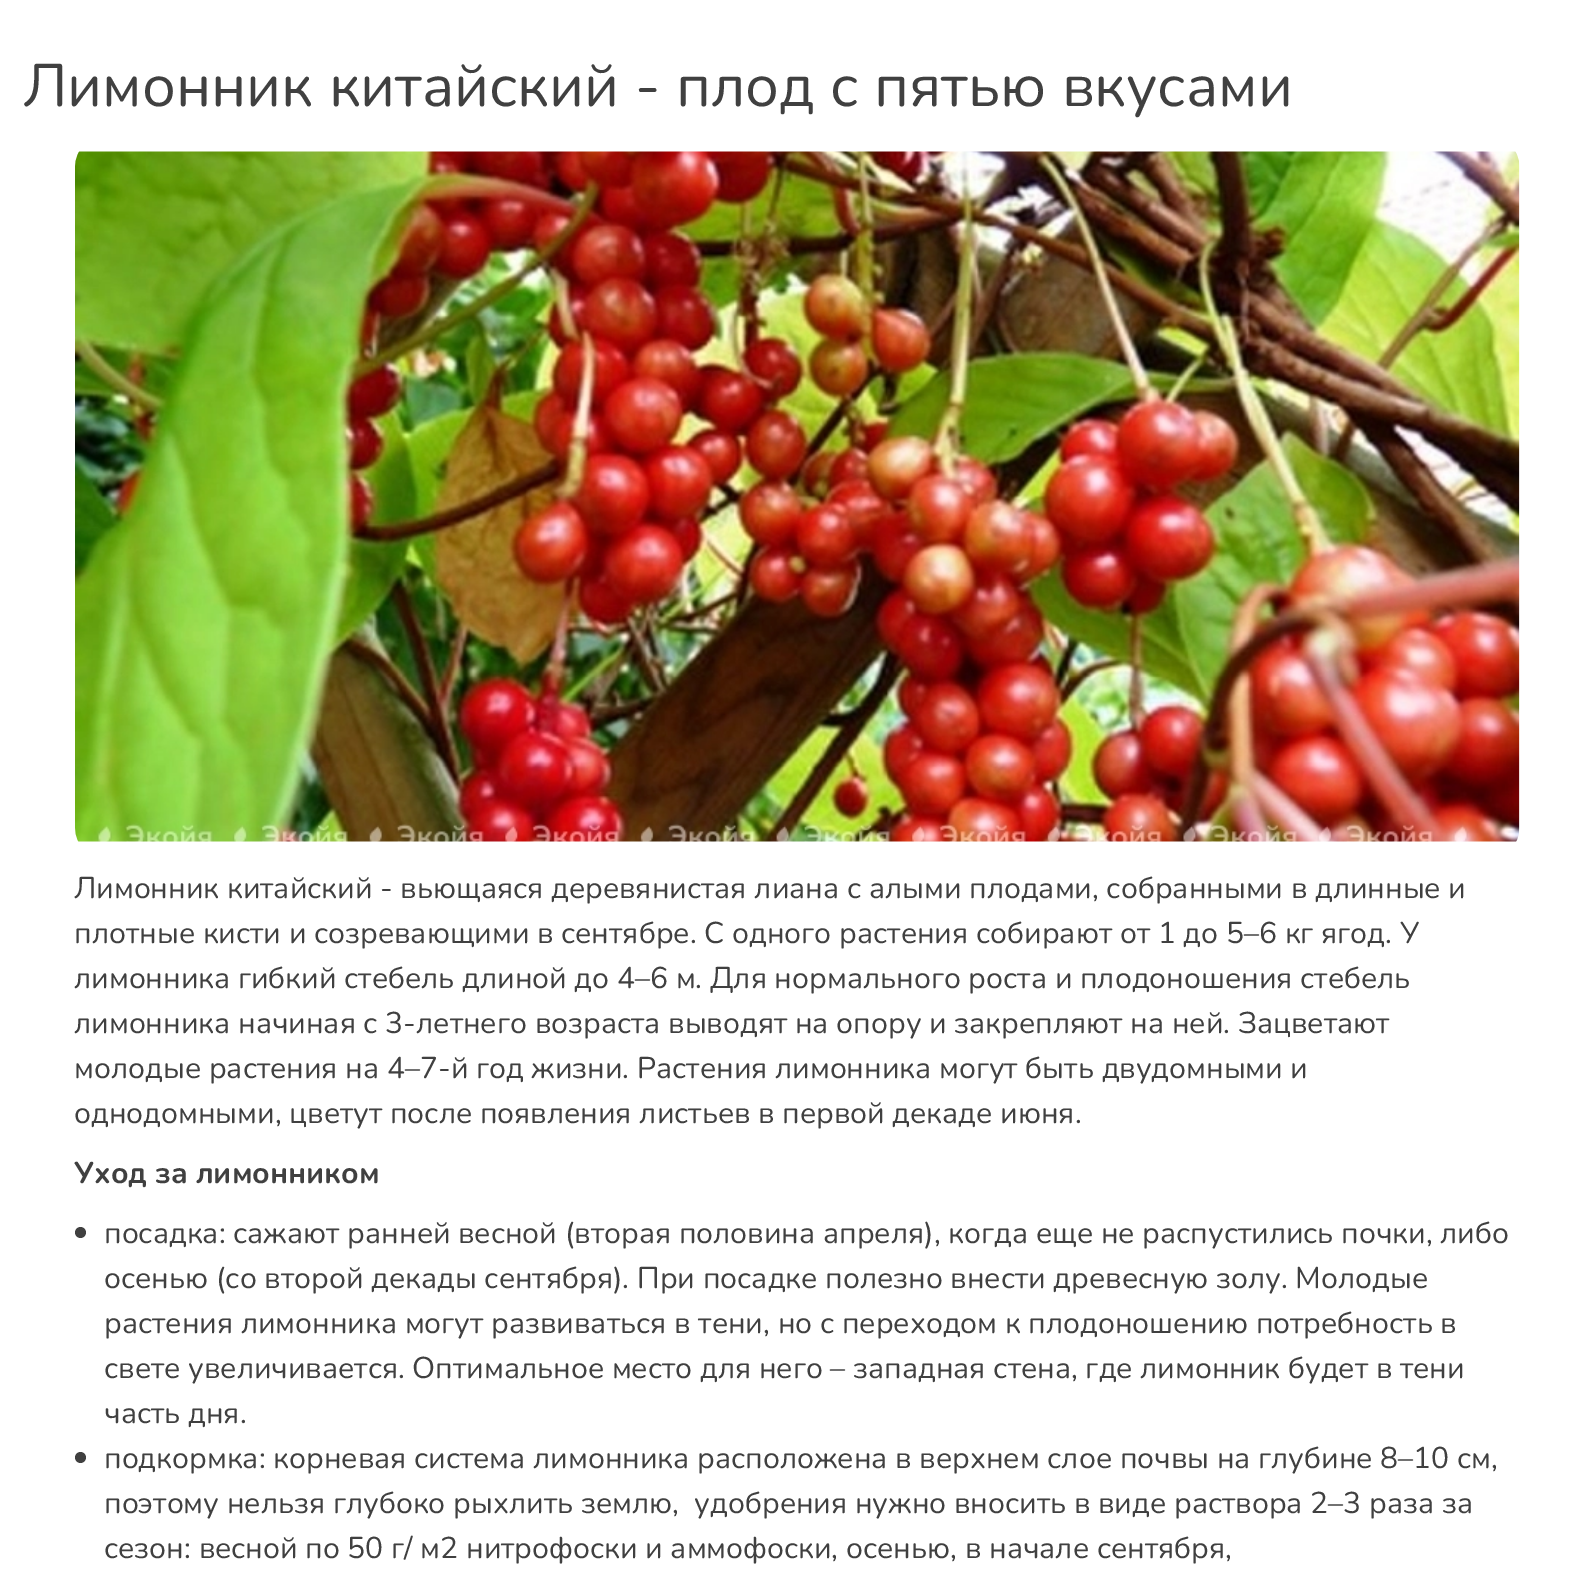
%!PS
<< /PageSize [1593 1569] >> setpagedevice
/rgb { 3 { 255 div 3 1 roll } repeat setrgbcolor } def
/font { [ exch dup neg 0 0 3 -1 roll 0 0 ] selectfont } def
/text { moveto show } def
/circle { newpath 0 360 arc closepath } def
/picture { 5 dict begin { /h /w /y /x /name } { exch def } forall
  gsave x y translate w h scale
  w h 8 [w 0 0 h 0 0] name (r) file false 3 colorimage grestore end } def
0 1569 translate 1 -1 scale
4 setmiterlimit
255 255 255 rgb
0 0 1593 1569 rectfill
(img_01.rgb) 75 151 1445 691 picture
64 64 64 rgb
80.5 1232.5 5.5 circle fill
80.5 1457.5 5.5 circle fill
/Nunito-Regular 60 font
(Лимонник китайский - плод с пятью вкусами) 23 106 text
/Nunito-Regular 30 font
(Лимонник китайский - вьющаяся деревянистая лиана с алыми плодами, собранными в длинные и) 74 898 text
(плотные кисти и созревающими в сентябре. С одного растения собирают от 1 до 5–6 кг ягод. У) 74 943 text
(лимонника гибкий стебель длиной до 4–6 м. Для нормального роста и плодоношения стебель) 74 988 text
(лимонника начиная с 3-летнего возраста выводят на опору и закрепляют на ней. Зацветают) 74 1033 text
(молодые растения на 4–7-й год жизни. Растения лимонника могут быть двудомными и) 74 1078 text
(однодомными, цветут после появления листьев в первой декаде июня.) 74 1123 text
/Nunito-Bold 30 font
(Уход за лимонником) 74 1183 text
/Nunito-Regular 30 font
(посадка: сажают ранней весной \(вторая половина апреля\), когда еще не распустились почки, либо) 104 1243 text
(осенью \(со второй декады сентября\). При посадке полезно внести древесную золу. Молодые) 104 1288 text
(растения лимонника могут развиваться в тени, но с переходом к плодоношению потребность в) 104 1333 text
(свете увеличивается. Оптимальное место для него – западная стена, где лимонник будет в тени) 104 1378 text
(часть дня.) 104 1423 text
(подкормка: корневая система лимонника расположена в верхнем слое почвы на глубине 8–10 см,) 104 1468 text
(поэтому нельзя глубоко рыхлить землю,  удобрения нужно вносить в виде раствора 2–3 раза за) 104 1513 text
(сезон: весной по 50 г/ м2 нитрофоски и аммофоски, осенью, в начале сентября,) 104 1558 text
showpage
